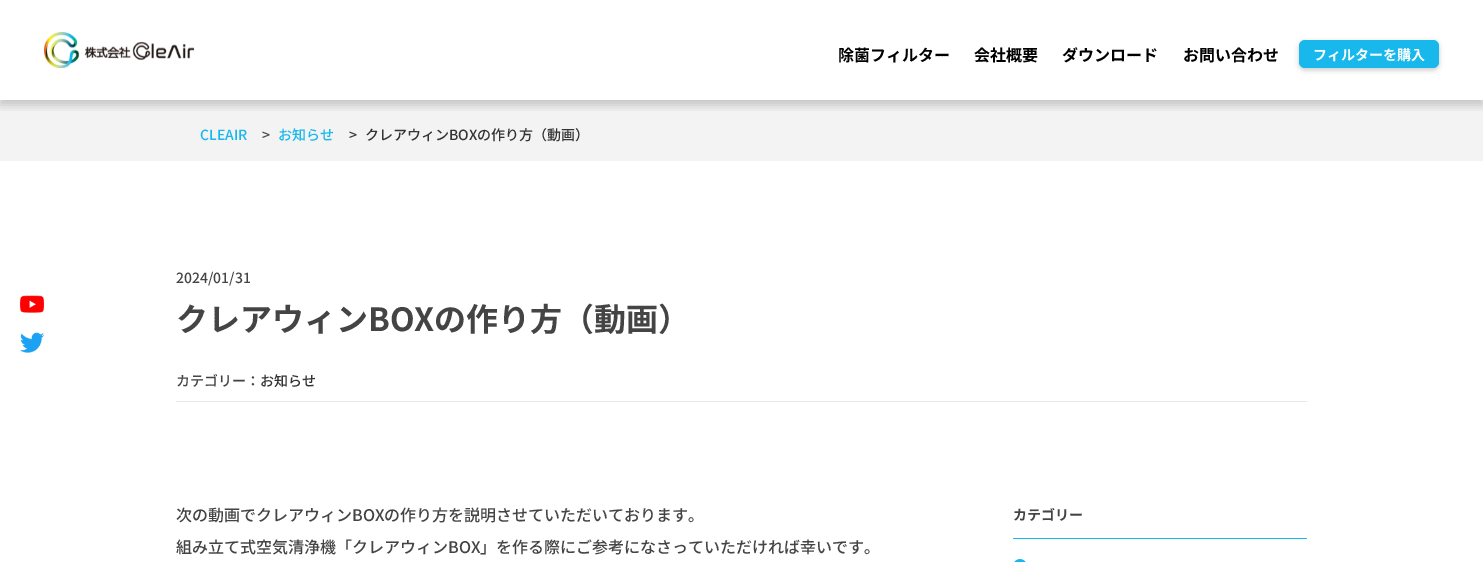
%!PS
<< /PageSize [1483 562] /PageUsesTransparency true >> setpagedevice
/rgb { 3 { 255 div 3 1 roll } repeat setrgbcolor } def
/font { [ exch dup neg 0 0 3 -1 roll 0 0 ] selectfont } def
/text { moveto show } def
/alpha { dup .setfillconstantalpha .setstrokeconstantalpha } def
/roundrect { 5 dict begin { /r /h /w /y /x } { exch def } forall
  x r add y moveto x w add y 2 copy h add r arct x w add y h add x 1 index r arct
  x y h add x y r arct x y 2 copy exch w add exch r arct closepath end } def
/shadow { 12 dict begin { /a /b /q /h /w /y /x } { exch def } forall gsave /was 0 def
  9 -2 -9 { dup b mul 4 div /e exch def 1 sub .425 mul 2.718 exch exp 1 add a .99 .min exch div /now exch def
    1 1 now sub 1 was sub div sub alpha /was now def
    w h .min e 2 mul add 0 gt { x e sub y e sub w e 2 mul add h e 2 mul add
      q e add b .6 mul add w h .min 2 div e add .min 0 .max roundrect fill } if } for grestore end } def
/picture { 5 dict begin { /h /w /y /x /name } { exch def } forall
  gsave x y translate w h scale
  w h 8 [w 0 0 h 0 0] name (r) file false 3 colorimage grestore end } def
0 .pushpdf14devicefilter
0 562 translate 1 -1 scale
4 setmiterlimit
255 255 255 rgb
0 0 1483 562 rectfill
243 243 243 rgb
0 100 1483 61 rectfill
gsave
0 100 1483 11 rectclip
0 0 0 rgb
0 5 1483 100 0 5 0.2 shadow
grestore
(img_01.rgb) 44 32 150 36 picture
0 0 0 rgb
1299 42 140 28 6 2.5 0.2 shadow
24 184 236 rgb
1299 40 140 28 6 roundrect fill
(img_02.rgb) 20 295 24 18 picture
(img_03.rgb) 20 332 24 21 picture
232 232 232 rgb
176 401 1131 1 rectfill
24 184 236 rgb
1013 538 294 1 rectfill
(img_04.rgb) 1014 559 12 3 picture
/NotoSansJP-Bold 16 font
0 0 0 rgb
(除菌フィルター) 838 61 text
(会社概要) 974 61 text
(ダウンロード) 1062 61 text
(お問い合わせ) 1183 61 text
/NotoSansJP-Bold 14 font
255 255 255 rgb
(フィルターを購入) 1313 60 text
/NotoSansJP-Medium 14 font
24 184 236 rgb
(CLEAIR) 200 140 text
68 68 68 rgb
(>) 262 140 text
24 184 236 rgb
(お知らせ) 278 140 text
51 51 51 rgb
(>) 349 140 text
(クレアウィンBOXの作り方（動画）) 365 140 text
68 68 68 rgb
(2024/01/31) 176 283 text
/NotoSansJP-Bold 32 font
(クレアウィンBOXの作り方（動画）) 176 331 text
/NotoSansJP-Medium 14 font
(カテゴリー：) 176 386 text
51 51 51 rgb
(お知らせ) 260 386 text
/NotoSansJP-Medium 16 font
68 68 68 rgb
(次の動画でクレアウィンBOXの作り方を説明させていただいております。) 176 521 text
(組み立て式空気清浄機「クレアウィンBOX」を作る際にご参考になさっていただければ幸いです。) 176 553 text
/NotoSansJP-Bold 14 font
(カテゴリー) 1013 520 text
.poppdf14devicefilter showpage
